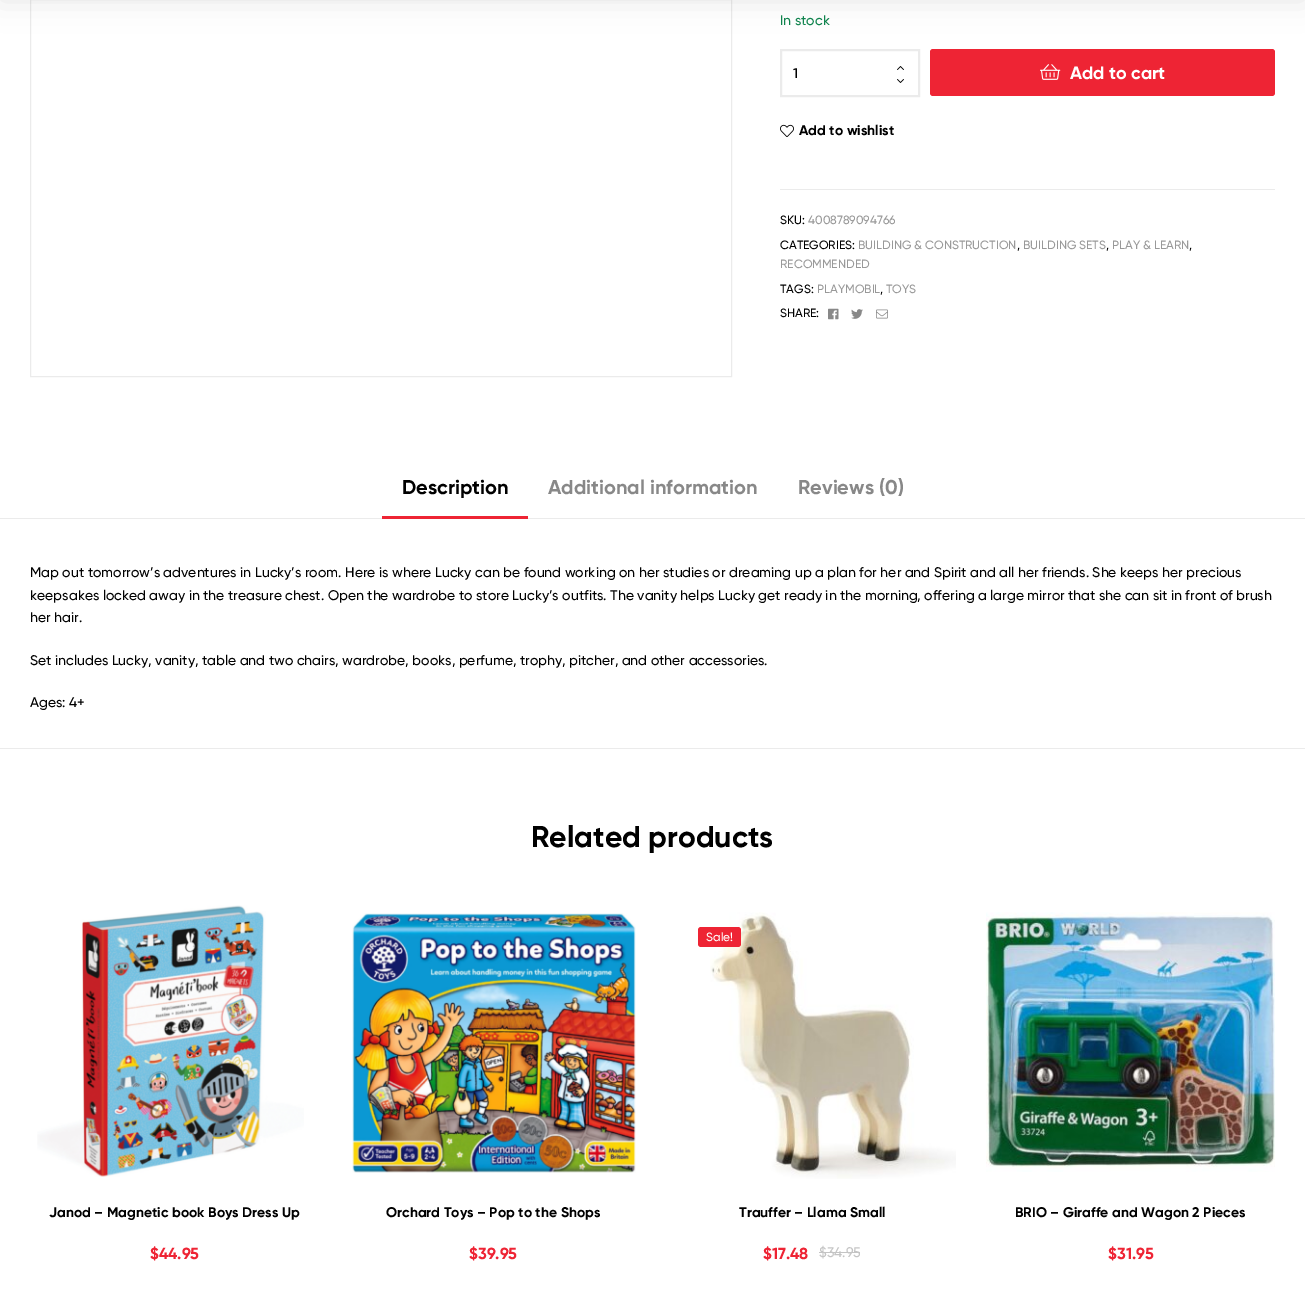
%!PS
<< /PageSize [1305 1309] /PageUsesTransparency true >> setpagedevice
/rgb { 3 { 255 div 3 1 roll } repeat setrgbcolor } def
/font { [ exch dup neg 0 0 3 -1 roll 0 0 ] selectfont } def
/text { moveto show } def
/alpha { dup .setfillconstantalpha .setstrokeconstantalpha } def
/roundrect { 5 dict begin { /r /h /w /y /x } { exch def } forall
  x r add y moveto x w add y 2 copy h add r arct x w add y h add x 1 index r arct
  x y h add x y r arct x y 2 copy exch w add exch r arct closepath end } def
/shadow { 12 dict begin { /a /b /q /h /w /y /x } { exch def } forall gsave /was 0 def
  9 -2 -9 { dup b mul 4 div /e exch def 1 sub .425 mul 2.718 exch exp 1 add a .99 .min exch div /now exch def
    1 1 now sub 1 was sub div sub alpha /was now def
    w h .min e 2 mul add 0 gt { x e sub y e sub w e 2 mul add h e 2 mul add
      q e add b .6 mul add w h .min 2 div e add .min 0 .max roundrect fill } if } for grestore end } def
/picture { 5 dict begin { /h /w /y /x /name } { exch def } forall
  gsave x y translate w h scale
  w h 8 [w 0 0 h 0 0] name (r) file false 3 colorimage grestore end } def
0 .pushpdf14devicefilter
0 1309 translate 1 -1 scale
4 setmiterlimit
255 255 255 rgb
0 0 1305 1309 rectfill
235 235 235 rgb
30.5 -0.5 701 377 rectstroke
0 0 0 rgb
0 -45 1305 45 0 15 0.1 shadow
235 235 235 rgb
2 setlinewidth
781 50 138 46 rectstroke
(img_01.rgb) 897 66 7 4 picture
(img_02.rgb) 897 79 7 4 picture
238 36 52 rgb
930 49 345 47 3 roundrect fill
(img_03.rgb) 1040 64 21 16 picture
(img_04.rgb) 780 124 14 13 picture
235 235 235 rgb
780 189 495 1 rectfill
(img_05.rgb) 828 308 11 12 picture
(img_06.rgb) 851 309 12 10 picture
(img_07.rgb) 876 309 12 10 picture
0 518 1305 1 rectfill
238 36 52 rgb
382 516 146 3 rectfill
235 235 235 rgb
0 748 1305 1 rectfill
(img_08.rgb) 37 905 267 272 picture
(img_09.rgb) 352 913 284 260 picture
(img_10.rgb) 710 912 246 267 picture
238 36 52 rgb
698 927 43 20 3 roundrect fill
196 196 196 rgb
819 1252 41 1 rectfill
(img_11.rgb) 986 912 289 260 picture
/Gilroy-Medium 14 font
15 131 77 rgb
(In stock) 780 25 text
0 0 0 rgb
(1) 793 78 text
/Gilroy-Bold 18 font
255 255 255 rgb
(Add to cart) 1070 79 text
/Gilroy-Bold 14 font
0 0 0 rgb
(Add to wishlist) 799 135 text
/Gilroy-Medium 12 font
(SKU:) 780 224 text
153 153 153 rgb
(4008789094766) 808 224 text
0 0 0 rgb
(CATEGORIES:) 780 249 text
153 153 153 rgb
(BUILDING & CONSTRUCTION) 858 249 text
0 0 0 rgb
(,) 1017 249 text
153 153 153 rgb
(BUILDING SETS) 1023 249 text
0 0 0 rgb
(,) 1106 249 text
153 153 153 rgb
(PLAY & LEARN) 1112 249 text
0 0 0 rgb
(,) 1189 249 text
153 153 153 rgb
(RECOMMENDED) 780 268 text
0 0 0 rgb
(TAGS:) 780 293 text
153 153 153 rgb
(PLAYMOBIL) 817 293 text
0 0 0 rgb
(,) 880 293 text
153 153 153 rgb
(TOYS) 886 293 text
0 0 0 rgb
(SHARE:) 780 317 text
/Gilroy-Bold 20 font
(Description) 402 494 text
136 136 136 rgb
(Additional information) 548 494 text
(Reviews \(0\)) 798 494 text
/Gilroy-Medium 14 font
0 0 0 rgb
(Map out tomorrow’s adventures in Lucky’s room. Here is where Lucky can be found working on her studies or dreaming up a plan for her and Spirit and all her friends. She keeps her precious) 30 577 text
(keepsakes locked away in the treasure chest. Open the wardrobe to store Lucky’s outfits. The vanity helps Lucky get ready in the morning, offering a large mirror that she can sit in front of brush) 30 600 text
(her hair.) 30 622 text
(Set includes Lucky, vanity, table and two chairs, wardrobe, books, perfume, trophy, pitcher, and other accessories.) 30 665 text
(Ages: 4+) 30 707 text
/Gilroy-Bold 30 font
(Related products) 531 847 text
/Gilroy-Bold 14 font
(Janod – Magnetic book Boys Dress Up) 49 1217 text
/Gilroy-Bold 16 font
238 36 52 rgb
($44.95) 150 1259 text
/Gilroy-Bold 14 font
0 0 0 rgb
(Orchard Toys – Pop to the Shops) 386 1217 text
/Gilroy-Bold 16 font
238 36 52 rgb
($39.95) 469 1259 text
/Gilroy-Medium 12 font
255 255 255 rgb
(Sale!) 706 941 text
/Gilroy-Bold 14 font
0 0 0 rgb
(Trauffer – Llama Small) 739 1217 text
/Gilroy-Bold 16 font
238 36 52 rgb
($17.48) 763 1259 text
/Gilroy-Medium 14 font
196 196 196 rgb
($34.95) 819 1257 text
/Gilroy-Bold 14 font
0 0 0 rgb
(BRIO – Giraffe and Wagon 2 Pieces) 1015 1217 text
/Gilroy-Bold 16 font
238 36 52 rgb
($31.95) 1108 1259 text
.poppdf14devicefilter showpage
